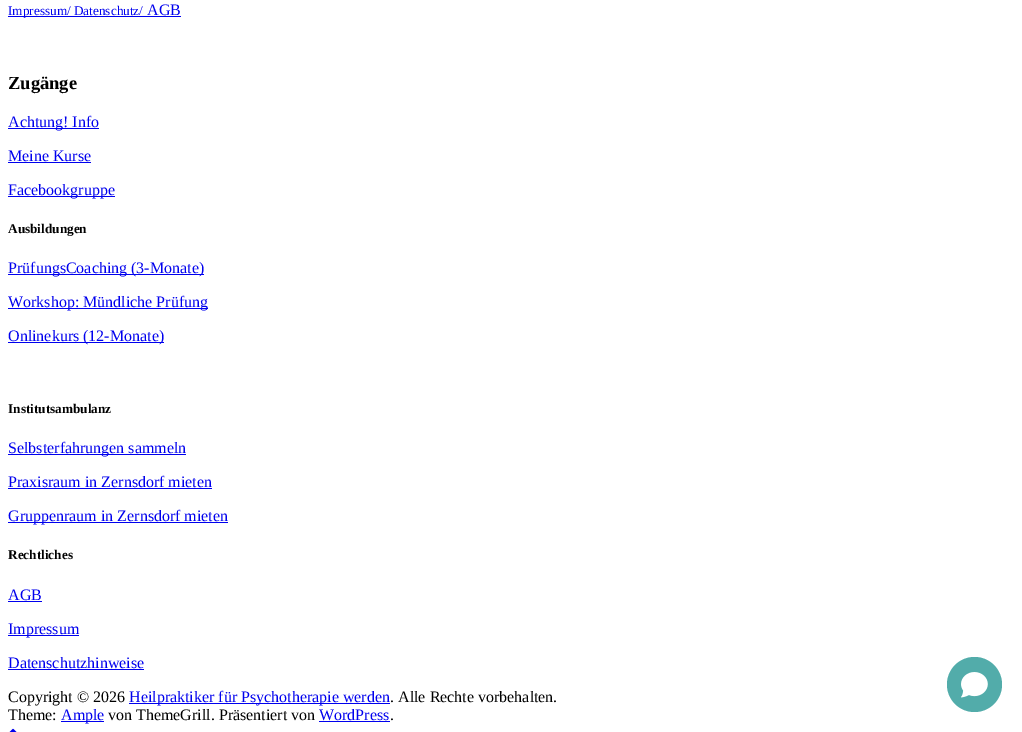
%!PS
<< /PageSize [1022 732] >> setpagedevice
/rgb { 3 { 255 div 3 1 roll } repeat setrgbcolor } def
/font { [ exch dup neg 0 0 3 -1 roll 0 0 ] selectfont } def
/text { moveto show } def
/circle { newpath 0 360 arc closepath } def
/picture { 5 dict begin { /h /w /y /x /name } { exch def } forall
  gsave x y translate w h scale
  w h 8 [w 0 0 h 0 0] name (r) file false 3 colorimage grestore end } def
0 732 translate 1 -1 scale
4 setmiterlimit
255 255 255 rgb
0 0 1022 732 rectfill
0 0 238 rgb
8 16 173 1 rectfill
8 128 91 1 rectfill
8 162 83 1 rectfill
8 196 107 1 rectfill
8 274 196 1 rectfill
8 308 200 1 rectfill
8 342 156 1 rectfill
8 454 178 1 rectfill
8 488 204 1 rectfill
8 522 220 1 rectfill
8 601 34 1 rectfill
8 635 71 1 rectfill
8 669 136 1 rectfill
129 703 261 1 rectfill
61 721 43 1 rectfill
319 721 71 1 rectfill
(img_01.rgb) 9 728 8 4 picture
82 172 170 rgb
974.5 684.5 27.5 circle fill
(img_02.rgb) 961 672 27 26 picture
/LiberationSerif-Regular 13.25 font
0 0 238 rgb
(Impressum/ Datenschutz/) 8 15 text
/LiberationSerif-Regular 16 font
(AGB) 147 15 text
/LiberationSerif-Bold 18.5 font
0 0 0 rgb
(Zugänge) 8 89 text
/LiberationSerif-Regular 16 font
0 0 238 rgb
(Achtung! Info) 8 127 text
(Meine Kurse) 8 161 text
(Facebookgruppe) 8 195 text
/LiberationSerif-Bold 13.25 font
0 0 0 rgb
(Ausbildungen) 8 233 text
/LiberationSerif-Regular 16 font
0 0 238 rgb
(PrüfungsCoaching \(3-Monate\)) 8 273 text
(Workshop: Mündliche Prüfung) 8 307 text
(Onlinekurs \(12-Monate\)) 8 341 text
/LiberationSerif-Bold 13.25 font
0 0 0 rgb
(Institutsambulanz) 8 413 text
/LiberationSerif-Regular 16 font
0 0 238 rgb
(Selbsterfahrungen sammeln) 8 453 text
(Praxisraum in Zernsdorf mieten) 8 487 text
(Gruppenraum in Zernsdorf mieten) 8 521 text
/LiberationSerif-Bold 13.25 font
0 0 0 rgb
(Rechtliches) 8 559 text
/LiberationSerif-Regular 16 font
0 0 238 rgb
(AGB) 8 600 text
(Impressum) 8 634 text
(Datenschutzhinweise) 8 668 text
0 0 0 rgb
(Copyright © 2026) 8 702 text
0 0 238 rgb
(Heilpraktiker für Psychotherapie werden) 129 702 text
0 0 0 rgb
(. Alle Rechte vorbehalten.) 390 702 text
(Theme:) 8 720 text
0 0 238 rgb
(Ample) 61 720 text
0 0 0 rgb
(von ThemeGrill. Präsentiert von) 108 720 text
0 0 238 rgb
(WordPress) 319 720 text
0 0 0 rgb
(.) 390 720 text
showpage
